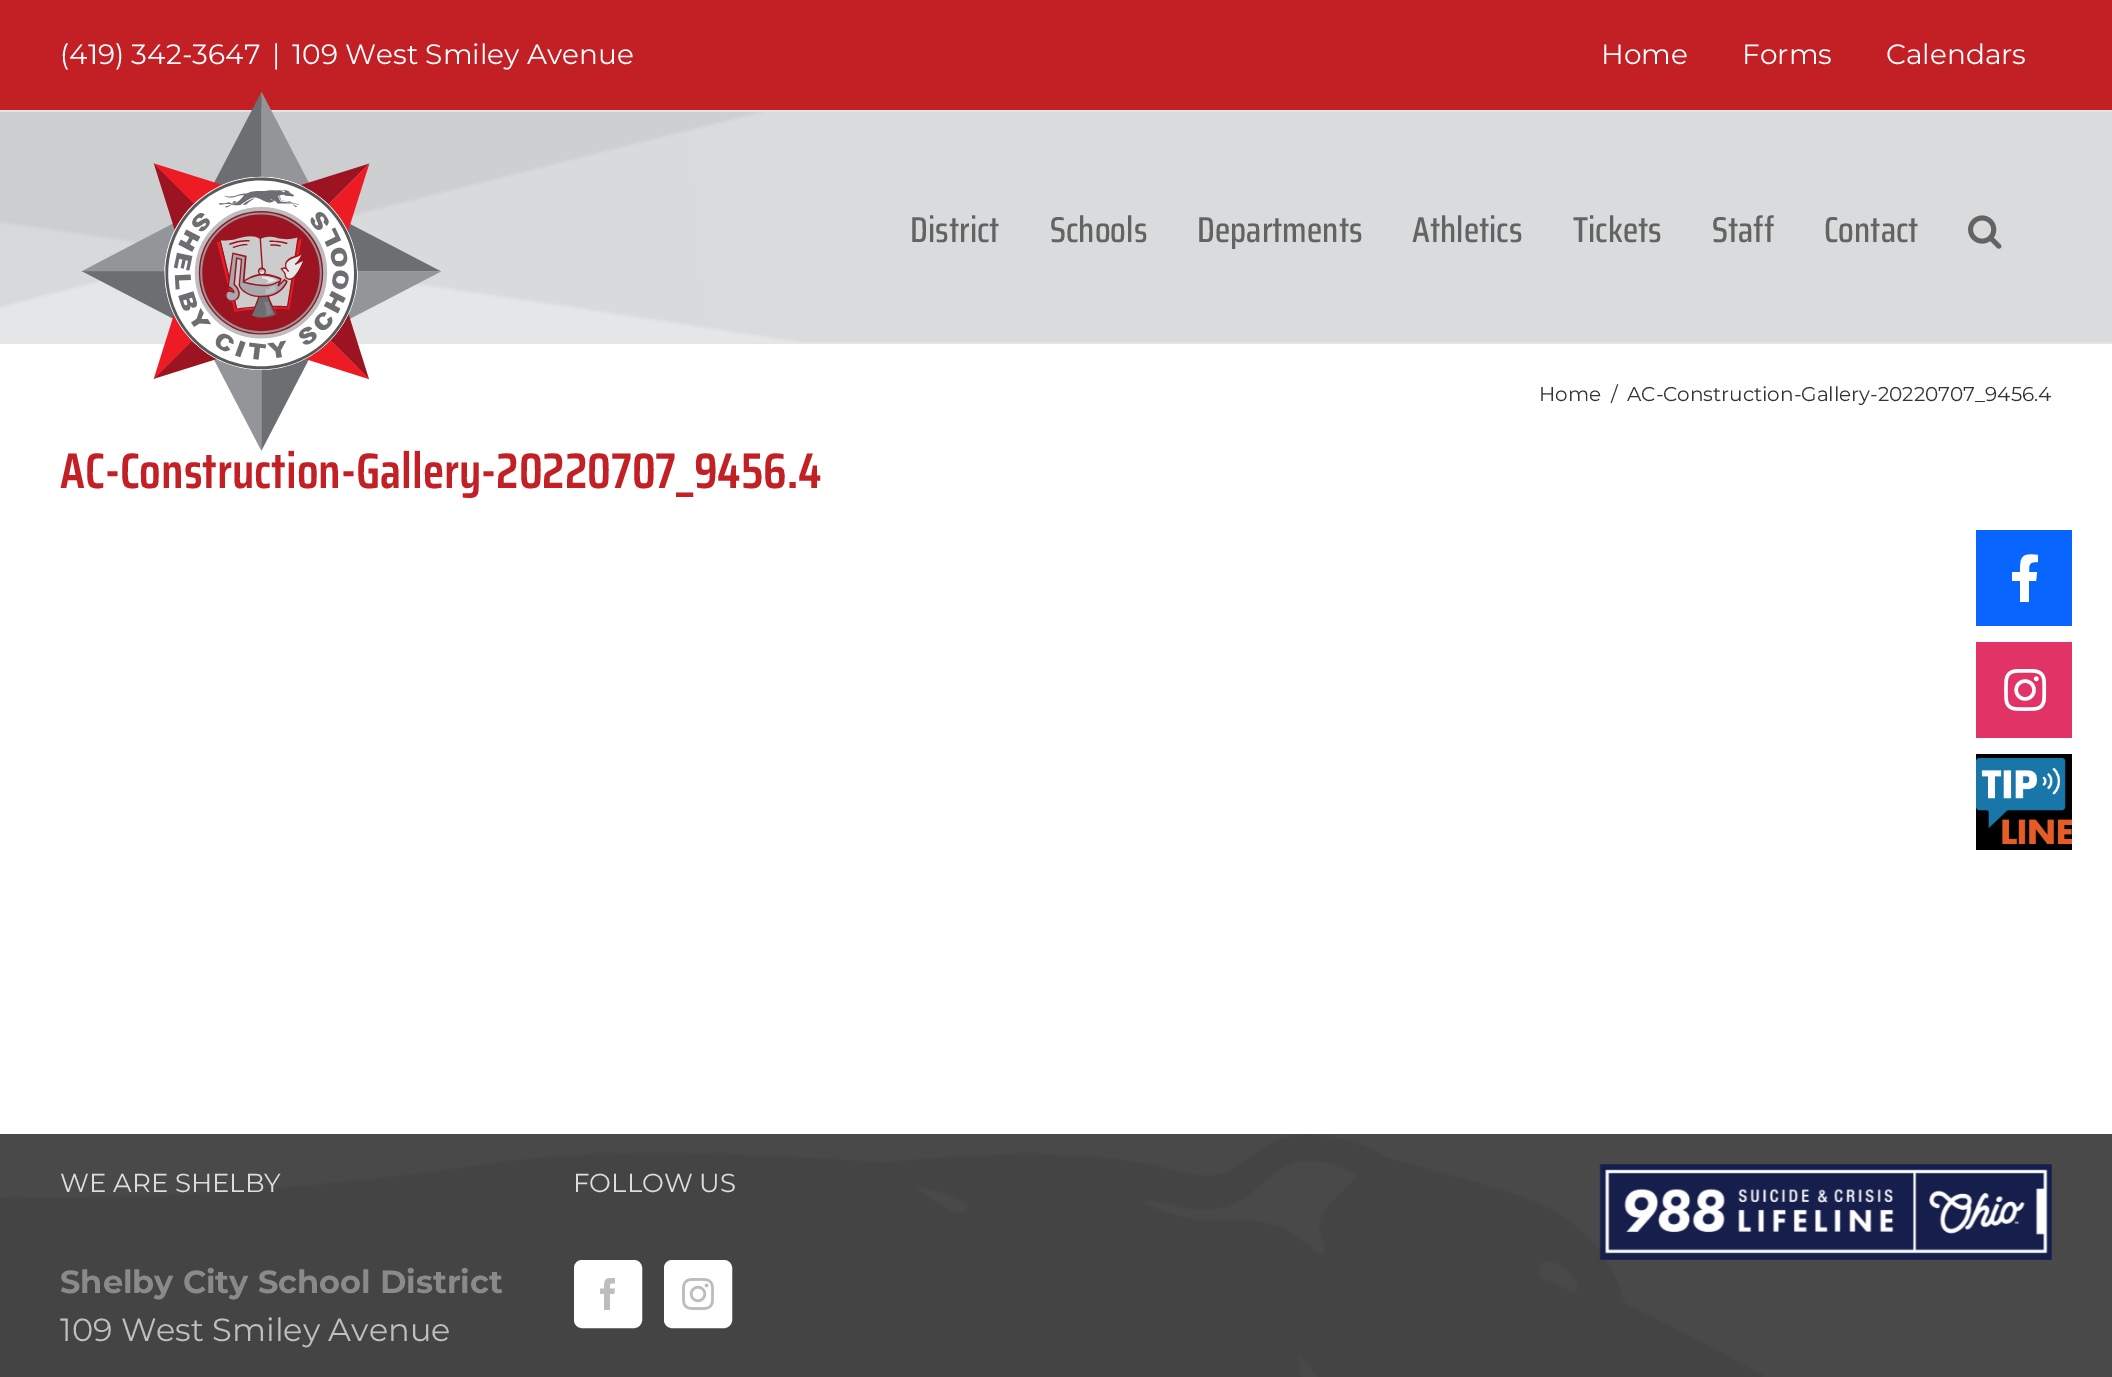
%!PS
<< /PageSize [2112 1377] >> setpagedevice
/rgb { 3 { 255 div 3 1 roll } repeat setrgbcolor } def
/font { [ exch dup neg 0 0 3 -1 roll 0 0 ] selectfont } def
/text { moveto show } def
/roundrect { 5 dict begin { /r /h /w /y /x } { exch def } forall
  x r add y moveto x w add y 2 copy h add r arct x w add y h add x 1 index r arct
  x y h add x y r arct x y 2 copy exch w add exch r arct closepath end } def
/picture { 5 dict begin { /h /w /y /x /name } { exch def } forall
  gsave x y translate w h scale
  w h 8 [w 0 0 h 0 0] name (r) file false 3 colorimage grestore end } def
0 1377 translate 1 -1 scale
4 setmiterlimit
255 255 255 rgb
0 0 2112 1377 rectfill
195 32 38 rgb
0 0 2112 110 rectfill
229 229 229 rgb
0 110 2112 2 rectfill
(img_01.rgb) 0 112 2112 230 picture
0 342 2112 2 rectfill
(img_03.rgb) 1968 215 34 34 picture
73 73 73 rgb
0 1134 2112 243 rectfill
(img_04.rgb) 0 1134 1763 243 picture
255 255 255 rgb
575 1261 66 66 7 roundrect gsave fill grestore
2 setlinewidth
stroke
(img_05.rgb) 600 1278 15 32 picture
665 1261 66 66 7 roundrect gsave fill grestore
stroke
(img_06.rgb) 682 1278 32 32 picture
(img_07.rgb) 1599 1164 453 96 picture
8 102 255 rgb
1976 530 96 96 rectfill
255 255 255 rgb
2036 581 moveto -7 0 rlineto 0 21 rlineto -9 0 rlineto 0 -21 rlineto -8 0 rlineto 0 -9 rlineto 8 0 rlineto 0 -16 2 -19 18 -17 rcurveto 0 7 rlineto -9 0 -9 2 -9 10 rcurveto 8 0 rlineto closepath fill
226 51 103 rgb
1976 642 96 96 rectfill
(img_08.rgb) 2004 669 43 42 picture
0 0 0 rgb
1976 754 96 96 rectfill
(img_09.rgb) 1976 758 96 86 picture
/Montserrat-Regular 28 font
255 255 255 rgb
(\(419\) 342-3647) 60 64 text
(|) 272 64 text
(109 West Smiley Avenue) 292 64 text
(Home) 1601 64 text
(Forms) 1742 64 text
(Calendars) 1886 64 text
/SairaCondensed-Medium 36 font
99 99 99 rgb
(District) 910 242 text
(Schools) 1050 242 text
(Departments) 1197 242 text
(Athletics) 1412 242 text
(Tickets) 1573 242 text
(Staff) 1712 242 text
(Contact) 1824 242 text
/Montserrat-Regular 20 font
51 51 51 rgb
(Home) 1539 401 text
(/) 1611 401 text
(AC-Construction-Gallery-20220707_9456.4) 1627 401 text
/SairaCondensed-SemiBold 50 font
195 32 38 rgb
(AC-Construction-Gallery-20220707_9456.4) 60 488 text
(img_02.rgb) 81 91 360 360 picture
/Montserrat-Regular 26 font
221 221 221 rgb
(WE ARE SHELBY) 60 1192 text
/Montserrat-Bold 32 font
140 137 137 rgb
(Shelby City School District) 60 1293 text
/Montserrat-Regular 32 font
191 191 191 rgb
(109 West Smiley Avenue) 60 1341 text
/Montserrat-Regular 26 font
221 221 221 rgb
(FOLLOW US) 573 1192 text
showpage
